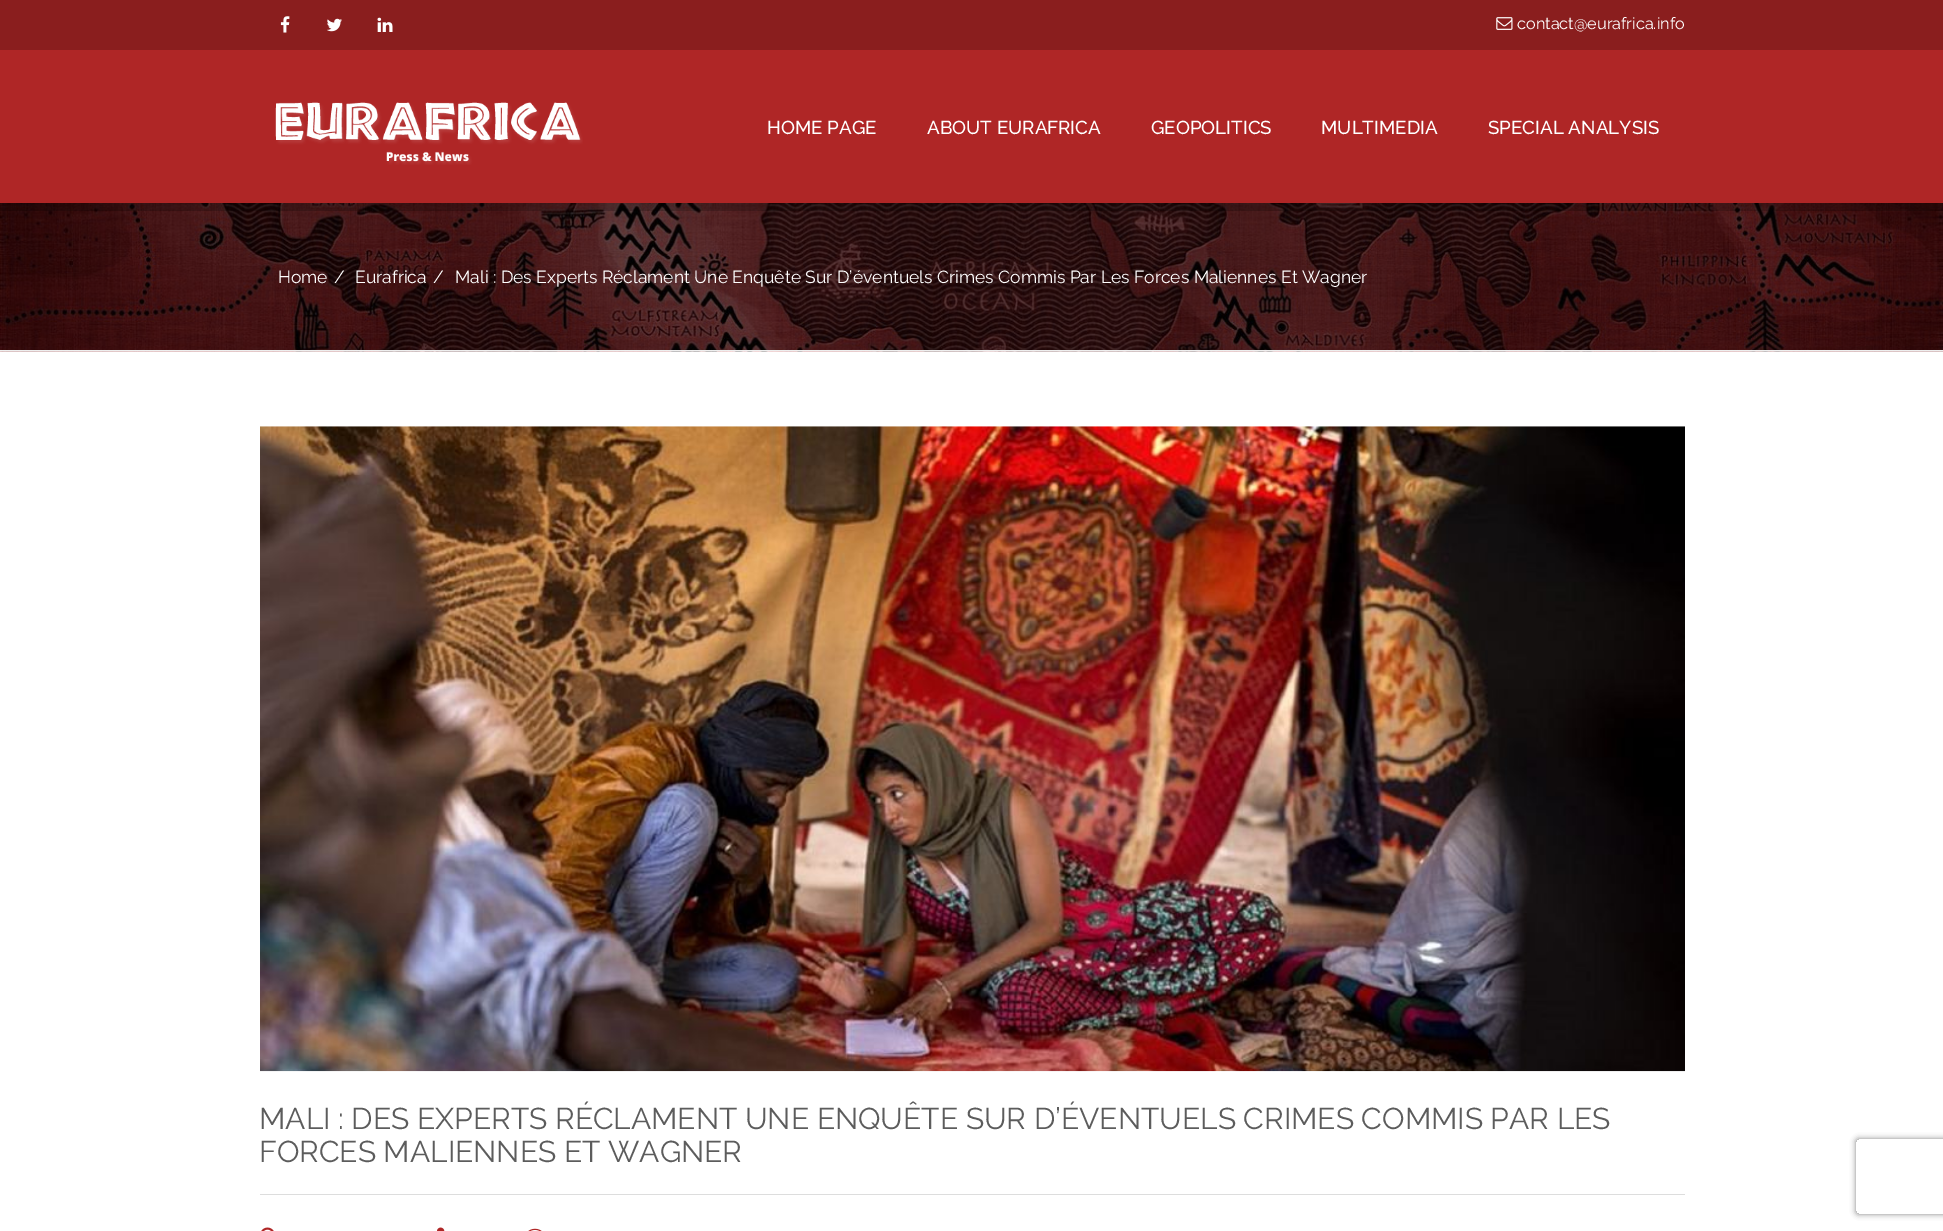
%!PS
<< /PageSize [1943 1231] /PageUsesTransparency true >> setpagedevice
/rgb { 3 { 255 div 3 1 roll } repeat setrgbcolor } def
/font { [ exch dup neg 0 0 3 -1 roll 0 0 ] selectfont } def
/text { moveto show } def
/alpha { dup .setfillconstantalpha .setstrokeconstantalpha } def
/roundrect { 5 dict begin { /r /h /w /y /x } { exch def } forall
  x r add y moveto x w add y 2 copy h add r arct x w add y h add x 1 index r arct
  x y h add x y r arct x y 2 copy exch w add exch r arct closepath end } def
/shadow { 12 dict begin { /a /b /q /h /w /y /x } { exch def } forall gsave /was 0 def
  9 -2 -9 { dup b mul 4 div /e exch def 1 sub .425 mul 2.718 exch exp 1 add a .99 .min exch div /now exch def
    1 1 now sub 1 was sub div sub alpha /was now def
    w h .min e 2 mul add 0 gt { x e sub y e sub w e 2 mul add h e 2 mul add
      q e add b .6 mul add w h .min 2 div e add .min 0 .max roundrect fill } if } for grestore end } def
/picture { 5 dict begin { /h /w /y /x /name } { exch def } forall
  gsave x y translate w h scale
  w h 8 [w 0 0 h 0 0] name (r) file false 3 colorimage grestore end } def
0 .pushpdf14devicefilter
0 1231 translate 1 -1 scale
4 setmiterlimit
255 255 255 rgb
0 0 1943 1231 rectfill
138 30 30 rgb
0 0 1943 50 rectfill
(img_01.rgb) 280 16 10 17 picture
(img_02.rgb) 327 18 15 14 picture
(img_03.rgb) 377 17 16 15 picture
(img_04.rgb) 1496 17 17 13 picture
(img_06.rgb) 0 203 1943 149 picture
0.2 alpha
0 0 0 rgb
0 202 moveto 0 9 rlineto 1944 0 rlineto 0 -152 rlineto 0 143 rlineto closepath fill
1 alpha
175 38 38 rgb
0 50 1943 153 rectfill
(img_05.rgb) 275 102 308 63 picture
238 238 238 rgb
0 350 1943 1 rectfill
(img_07.rgb) 260 426 1425 646 picture
221 221 221 rgb
260 1194 1425 1 rectfill
(img_08.rgb) 261 1227 13 4 picture
(img_09.rgb) 437 1227 8 4 picture
(img_10.rgb) 528 1228 14 3 picture
gsave
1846 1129 moveto 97 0 rlineto 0 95 rlineto -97 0 rlineto closepath 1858.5 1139 moveto 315 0 rlineto 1.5 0 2.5 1 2.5 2.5 rcurveto 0 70 rlineto 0 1.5 -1 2.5 -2.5 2.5 rcurveto -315 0 rlineto -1.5 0 -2.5 -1 -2.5 -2.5 rcurveto 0 -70 rlineto 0 -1.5 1 -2.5 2.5 -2.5 rcurveto closepath eoclip newpath
128 128 128 rgb
1856 1139 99 75 2.5 3 1 shadow
grestore
/Raleway-Regular 16.25 font
255 255 255 rgb
(contact@eurafrica.info) 1517 29 text
/Raleway-Medium 18.75 font
(HOME PAGE) 767 134 text
(ABOUT EURAFRICA) 927 134 text
(GEOPOLITICS) 1151 134 text
(MULTIMEDIA) 1321 134 text
(SPECIAL ANALYSIS) 1488 134 text
/Raleway-Regular 17.5 font
(Home) 278 283 text
(/) 334 283 text
(Eurafrica) 355 283 text
(/) 433 283 text
(Mali : Des Experts Réclament Une Enquête Sur D’éventuels Crimes Commis Par Les Forces Maliennes Et Wagner) 455 283 text
/Raleway-Regular 30 font
92 92 92 rgb
(MALI : DES EXPERTS RÉCLAMENT UNE ENQUÊTE SUR D’ÉVENTUELS CRIMES COMMIS PAR LES) 259 1129 text
(FORCES MALIENNES ET WAGNER) 259 1162 text
.poppdf14devicefilter showpage
